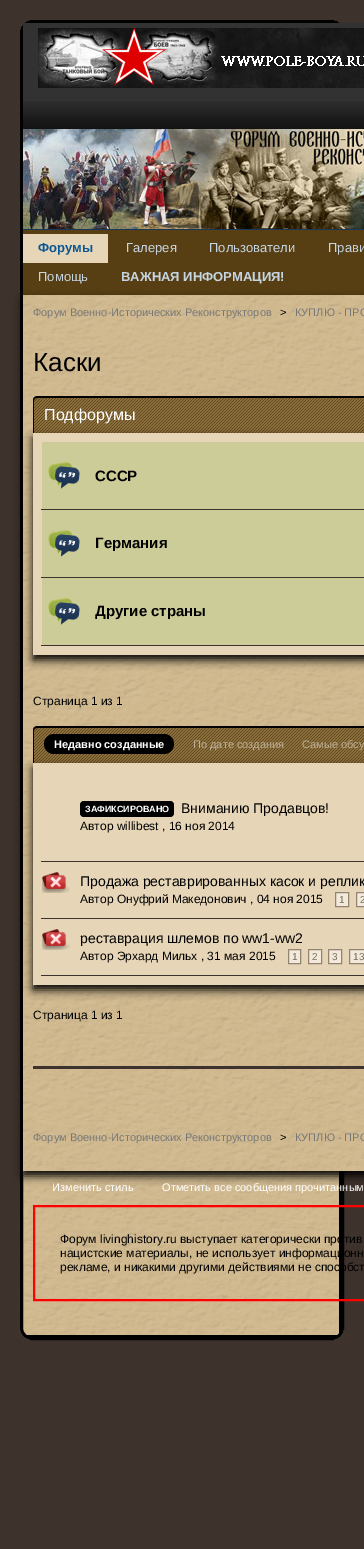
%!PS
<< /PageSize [364 1549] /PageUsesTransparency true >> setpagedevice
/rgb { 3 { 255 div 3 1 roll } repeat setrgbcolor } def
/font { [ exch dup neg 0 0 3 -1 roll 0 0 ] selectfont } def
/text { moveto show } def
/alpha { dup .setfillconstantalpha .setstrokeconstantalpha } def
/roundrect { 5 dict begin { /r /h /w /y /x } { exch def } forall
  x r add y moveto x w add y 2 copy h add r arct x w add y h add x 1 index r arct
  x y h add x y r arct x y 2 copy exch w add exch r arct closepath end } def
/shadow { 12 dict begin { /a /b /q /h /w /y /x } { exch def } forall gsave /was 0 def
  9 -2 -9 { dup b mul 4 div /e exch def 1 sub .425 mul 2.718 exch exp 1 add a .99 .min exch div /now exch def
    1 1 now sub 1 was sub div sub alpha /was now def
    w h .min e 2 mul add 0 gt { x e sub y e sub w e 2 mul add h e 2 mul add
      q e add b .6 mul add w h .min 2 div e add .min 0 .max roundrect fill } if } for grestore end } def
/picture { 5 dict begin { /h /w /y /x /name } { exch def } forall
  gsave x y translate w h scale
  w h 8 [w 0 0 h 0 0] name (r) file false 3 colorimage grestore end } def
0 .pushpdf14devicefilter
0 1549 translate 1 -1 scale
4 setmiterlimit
62 50 44 rgb
0 0 364 1549 rectfill
(img_01.rgb) 20 20 324 1320 picture
0 0 0 rgb
3 setlinewidth
21.5 21.5 321 1317 10.5 roundrect stroke
339 1171 2 163 rectfill
26 1335 312 2 rectfill
50 50 50 rgb
23 23 341 78 rectfill
(img_02.rgb) 23 101 341 28 picture
(img_03.rgb) 38 28 326 60 picture
27 55 89 rgb
23 229 341 1 rectfill
(img_04.rgb) 23 129 341 100 picture
88 63 19 rgb
23 230 341 65 rectfill
230 213 182 rgb
23 234 85 29 rectfill
0 0 0 rgb
23 300 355 876 0 4.5 1 shadow
(img_05.rgb) 23 295 341 876 picture
(img_06.rgb) 33 397 331 36 picture
37 398 moveto 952 0 rlineto 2 0 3 1 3 3 rcurveto 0 -2 -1 -4 -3 -4 rcurveto -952 0 rlineto -2 0 -3 2 -3 4 rcurveto 0 -2 1 -3 3 -3 rcurveto closepath fill
37 396 moveto 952 0 rlineto 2 0 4 2 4 4 rcurveto 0 33 rlineto -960 0 rlineto 0 -33 rlineto 0 -2 2 -4 4 -4 rcurveto closepath 37 397 moveto 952 0 rlineto 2 0 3 1 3 3 rcurveto 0 33 rlineto -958 0 rlineto 0 -33 rlineto 0 -2 1 -3 3 -3 rcurveto closepath eofill
33 438 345 222 0 4.5 1 shadow
230 213 182 rgb
33 433 331 222 rectfill
204 204 152 rgb
42 442 322 67 rectfill
(img_07.rgb) 48 462 32 27 picture
62 50 44 rgb
41 509 323 1 rectfill
204 204 152 rgb
42 510 322 67 rectfill
(img_07.rgb) 48 530 32 27 picture
62 50 44 rgb
41 577 323 1 rectfill
204 204 152 rgb
42 578 322 67 rectfill
(img_07.rgb) 48 598 32 27 picture
62 50 44 rgb
41 645 323 1 rectfill
(img_08.rgb) 33 727 331 36 picture
0 0 0 rgb
37 728 moveto 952 0 rlineto 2 0 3 1 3 3 rcurveto 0 -2 -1 -4 -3 -4 rcurveto -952 0 rlineto -2 0 -3 2 -3 4 rcurveto 0 -2 1 -3 3 -3 rcurveto closepath fill
37 726 moveto 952 0 rlineto 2 0 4 2 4 4 rcurveto 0 33 rlineto -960 0 rlineto 0 -33 rlineto 0 -2 2 -4 4 -4 rcurveto closepath 37 727 moveto 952 0 rlineto 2 0 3 1 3 3 rcurveto 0 33 rlineto -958 0 rlineto 0 -33 rlineto 0 -2 1 -3 3 -3 rcurveto closepath eofill
33 768 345 222 0 4.5 1 shadow
44 734 130 20 10 roundrect fill
230 213 182 rgb
33 763 331 222 rectfill
62 50 44 rgb
41 861 323 1 rectfill
0 0 0 rgb
80 801 94 16 4 roundrect fill
(img_09.rgb) 42 872 28 21 picture
62 50 44 rgb
41 918 323 1 rectfill
243 234 219 rgb
335.5 892.5 moveto 13 0 rlineto 0 14 rlineto -13 0 rlineto closepath gsave fill grestore
146 132 113 rgb
1 setlinewidth
stroke
243 234 219 rgb
356.5 892.5 moveto 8 0 rlineto 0 14 rlineto -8 0 rlineto closepath gsave fill grestore
146 132 113 rgb
stroke
(img_09.rgb) 42 929 28 21 picture
62 50 44 rgb
41 975 323 1 rectfill
243 234 219 rgb
288.5 949.5 moveto 12 0 rlineto 0 14 rlineto -12 0 rlineto closepath gsave fill grestore
146 132 113 rgb
stroke
243 234 219 rgb
308.5 949.5 moveto 13 0 rlineto 0 14 rlineto -13 0 rlineto closepath gsave fill grestore
146 132 113 rgb
stroke
243 234 219 rgb
328.5 949.5 moveto 13 0 rlineto 0 14 rlineto -13 0 rlineto closepath gsave fill grestore
146 132 113 rgb
stroke
243 234 219 rgb
349.5 949.5 moveto 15 0 rlineto 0 14 rlineto -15 0 rlineto closepath gsave fill grestore
146 132 113 rgb
stroke
62 50 44 rgb
33 1066 331 3 rectfill
255 0 0 rgb
2 setlinewidth
34 1206 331 94 rectstroke
/LiberationSans-Bold 13 font
11 87 148 rgb
(Форумы) 38 252 text
/LiberationSans-Regular 13 font
197 213 226 rgb
(Галерея) 126 252 text
(Пользователи) 209 252 text
(Прави) 328 252 text
(Помощь) 38 281 text
/LiberationSans-Bold 13 font
(ВАЖНАЯ ИНФОРМАЦИЯ!) 121 281 text
/LiberationSans-Regular 11 font
119 119 119 rgb
(Форум Военно-Исторических Реконструкторов) 33 316 text
0 0 0 rgb
(>) 280 316 text
119 119 119 rgb
(КУПЛЮ - ПРО) 295 316 text
/LiberationSans-Regular 26 font
0 0 0 rgb
(Каски) 33 371 text
/LiberationSans-Regular 16 font
255 255 255 rgb
(Подфорумы) 44 420 text
/LiberationSans-Bold 15 font
0 0 0 rgb
(СССР) 95 481 text
(Германия) 95 548 text
(Другие страны) 95 616 text
/LiberationSans-Regular 12 font
(Страница 1 из 1) 33 705 text
/LiberationSans-Bold 11 font
255 255 255 rgb
(Недавно созданные) 54 748 text
/LiberationSans-Regular 11 font
190 177 153 rgb
(По дате создания) 193 748 text
(Самые обсу) 302 748 text
/LiberationSans-Bold 9 font
255 255 255 rgb
(ЗАФИКСИРОВАНО) 85 812 text
/LiberationSans-Regular 14 font
0 0 0 rgb
(Вниманию Продавцов!) 181 813 text
/LiberationSans-Regular 12 font
(Автор willibest , 16 ноя 2014) 80 830 text
/LiberationSans-Regular 14 font
(Продажа реставрированных касок и реплик) 80 886 text
/LiberationSans-Regular 12 font
(Автор Онуфрий Македонович , 04 ноя 2015) 80 903 text
/LiberationSans-Regular 10 font
115 107 91 rgb
(1) 339 903 text
(2) 360 903 text
/LiberationSans-Regular 14 font
0 0 0 rgb
(реставрация шлемов по ww1-ww2) 80 943 text
/LiberationSans-Regular 12 font
(Автор Эрхард Мильх , 31 мая 2015) 80 960 text
/LiberationSans-Regular 10 font
115 107 91 rgb
(1) 292 960 text
(2) 312 960 text
(3) 332 960 text
(13) 353 960 text
/LiberationSans-Regular 12 font
0 0 0 rgb
(Страница 1 из 1) 33 1019 text
/LiberationSans-Regular 11 font
119 119 119 rgb
(Форум Военно-Исторических Реконструкторов) 33 1141 text
0 0 0 rgb
(>) 280 1141 text
119 119 119 rgb
(КУПЛЮ - ПРО) 295 1141 text
255 255 255 rgb
(Изменить стиль) 52 1191 text
(Отметить все сообщения прочитанным) 162 1191 text
/LiberationSans-Regular 12 font
0 0 0 rgb
(Форум livinghistory.ru выступает категорически против) 60 1243 text
(нацистские материалы, не использует информационн) 60 1257 text
(рекламе, и никакими другими действиями не способст) 60 1271 text
.poppdf14devicefilter showpage
